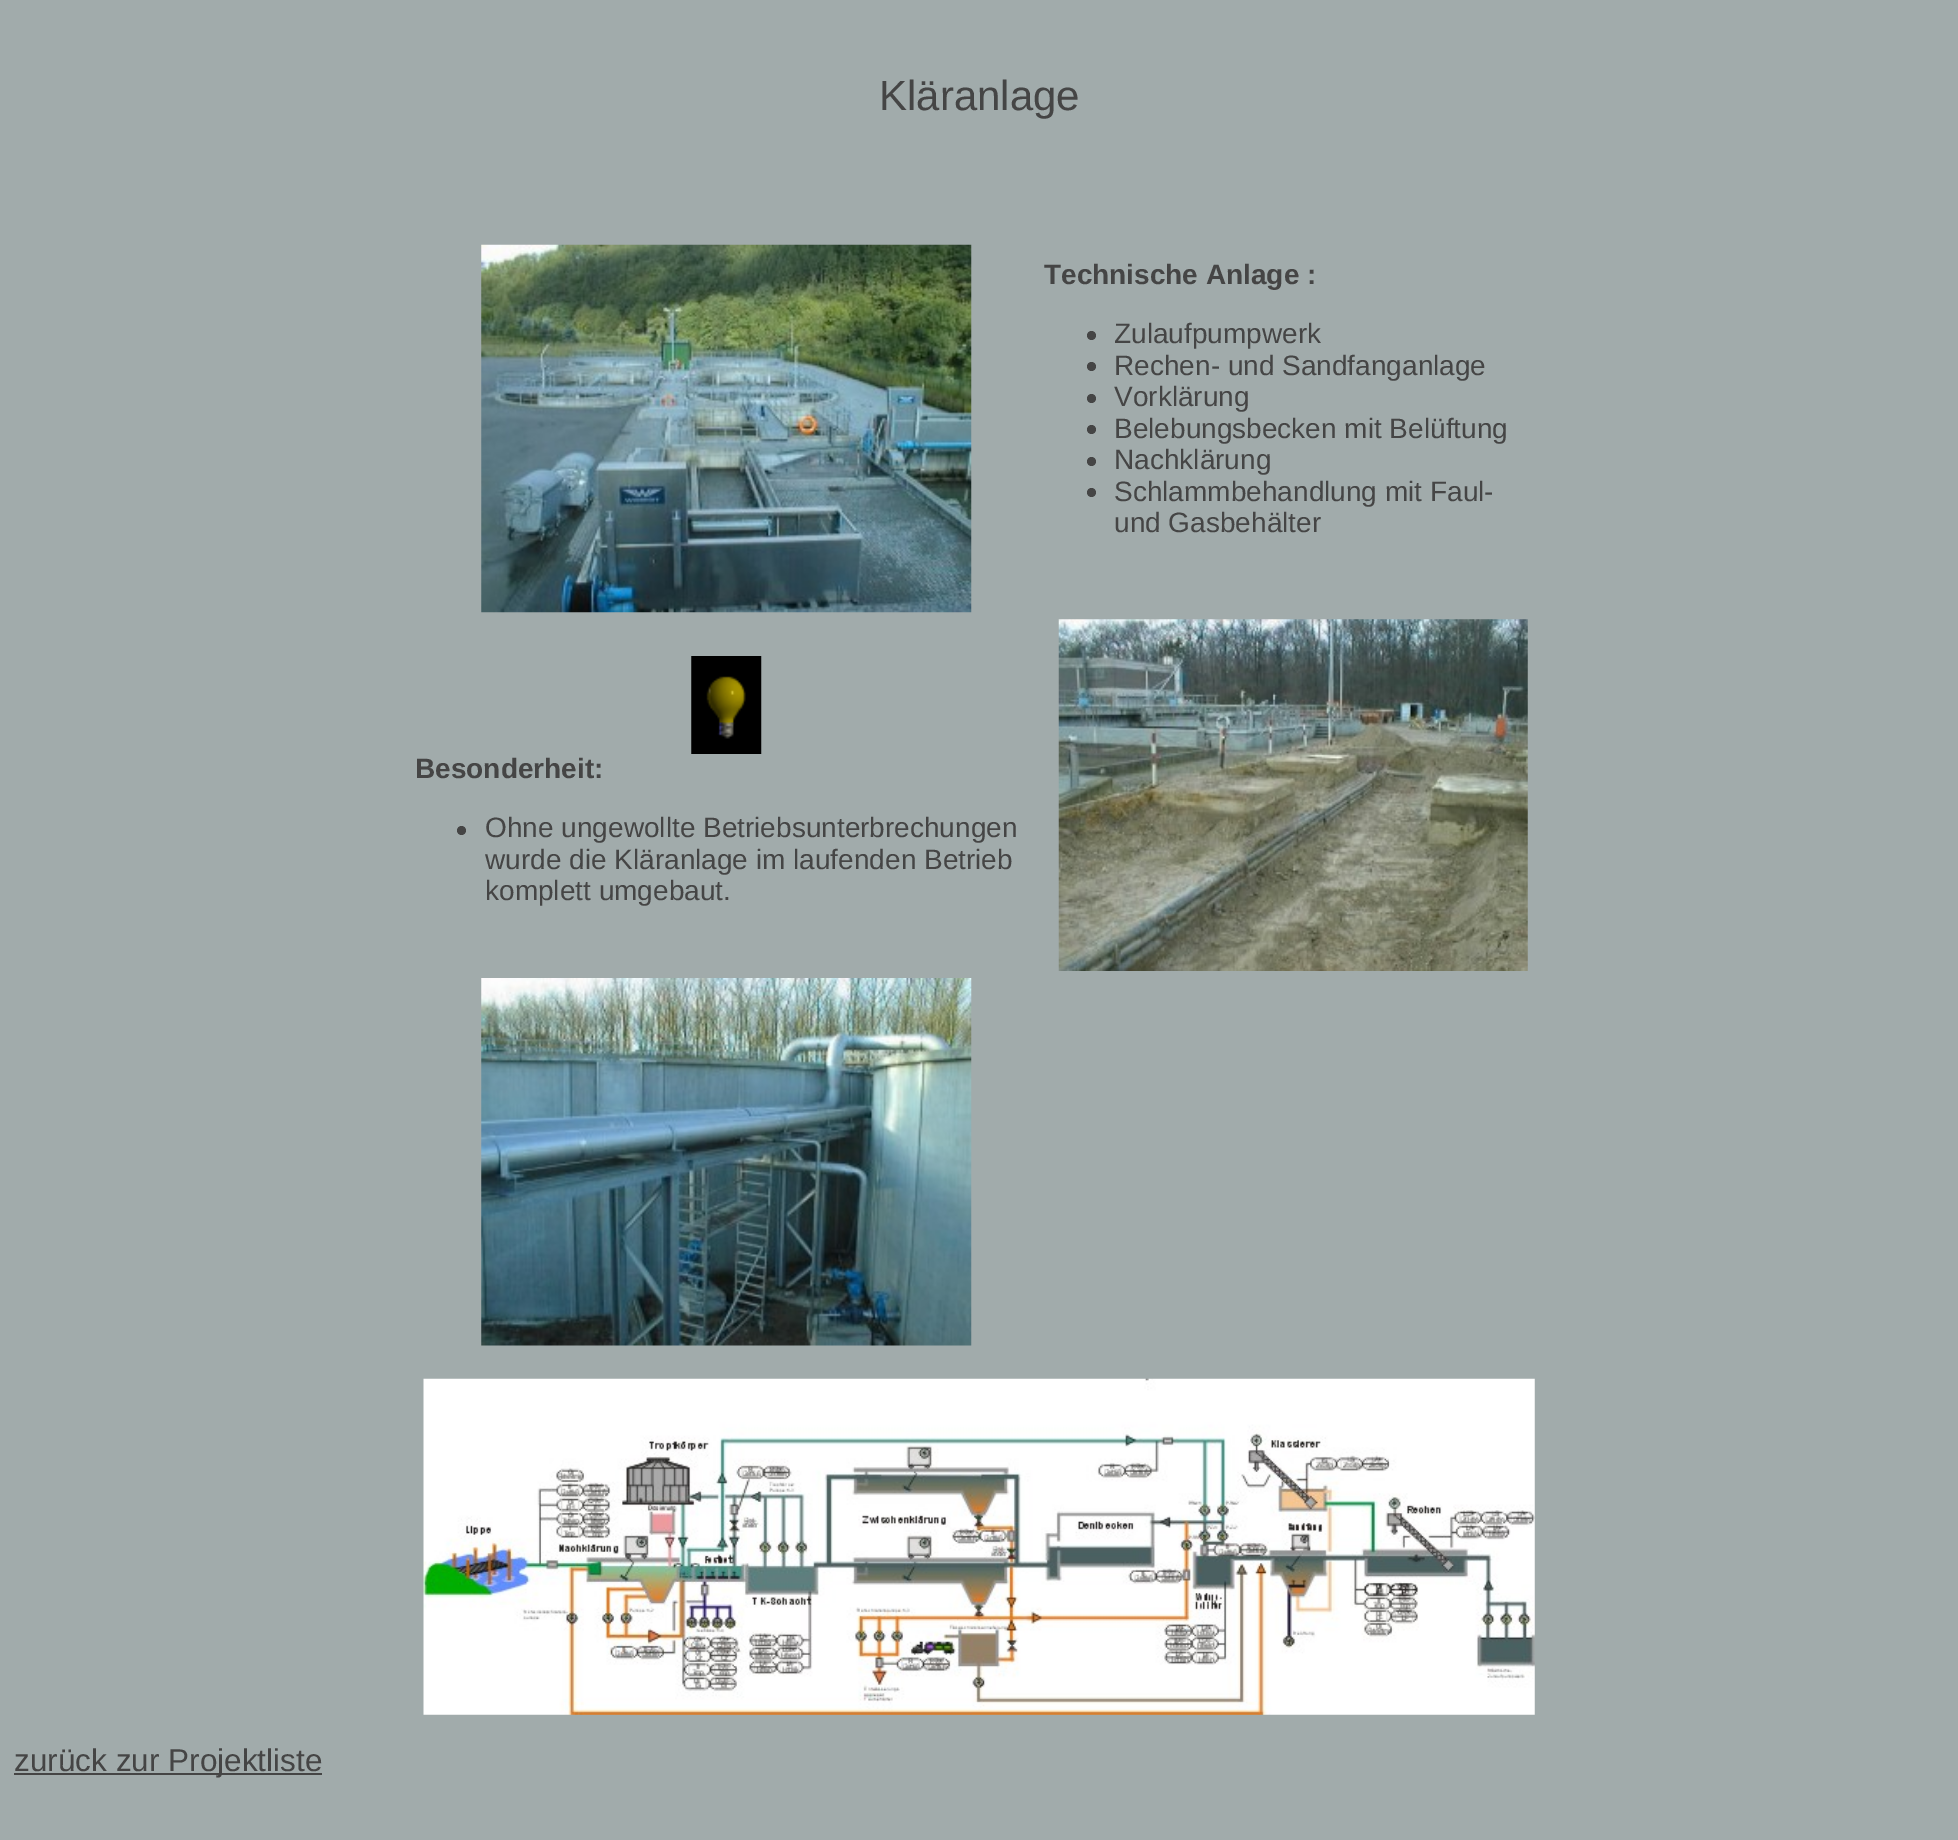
%!PS
<< /PageSize [1958 1840] >> setpagedevice
/rgb { 3 { 255 div 3 1 roll } repeat setrgbcolor } def
/font { [ exch dup neg 0 0 3 -1 roll 0 0 ] selectfont } def
/text { moveto show } def
/circle { newpath 0 360 arc closepath } def
/picture { 5 dict begin { /h /w /y /x /name } { exch def } forall
  gsave x y translate w h scale
  w h 8 [w 0 0 h 0 0] name (r) file false 3 colorimage grestore end } def
0 1840 translate 1 -1 scale
4 setmiterlimit
161 171 171 rgb
0 0 1958 1840 rectfill
(img_01.rgb) 481 244 491 369 picture
69 69 69 rgb
1091.5 335.5 4.5 circle fill
1091.5 366.5 4.5 circle fill
1091.5 398.5 4.5 circle fill
1091.5 429.5 4.5 circle fill
1091.5 461.5 4.5 circle fill
1091.5 492.5 4.5 circle fill
(img_02.rgb) 691 656 71 98 picture
461.5 830.5 4.5 circle fill
(img_03.rgb) 1058 619 470 352 picture
(img_04.rgb) 481 978 491 368 picture
(img_05.rgb) 423 1378 1112 337 picture
14 1773 308 2 rectfill
/LiberationSans-Regular 42 font
(Kläranlage) 879 110 text
/LiberationSans-Bold 28 font
(Technische Anlage :) 1044 284 text
/LiberationSans-Regular 28 font
(Zulaufpumpwerk) 1114 343 text
(Rechen- und Sandfanganlage) 1114 375 text
(Vorklärung) 1114 406 text
(Belebungsbecken mit Belüftung) 1114 438 text
(Nachklärung) 1114 469 text
(Schlammbehandlung mit Faul-) 1114 501 text
(und Gasbehälter) 1114 532 text
/LiberationSans-Bold 28 font
(Besonderheit:) 415 778 text
/LiberationSans-Regular 28 font
(Ohne ungewollte Betriebsunterbrechungen) 485 837 text
(wurde die Kläranlage im laufenden Betrieb) 485 869 text
(komplett umgebaut.) 485 900 text
/LiberationSans-Regular 31.5 font
(zurück zur Projektliste) 14 1771 text
showpage
